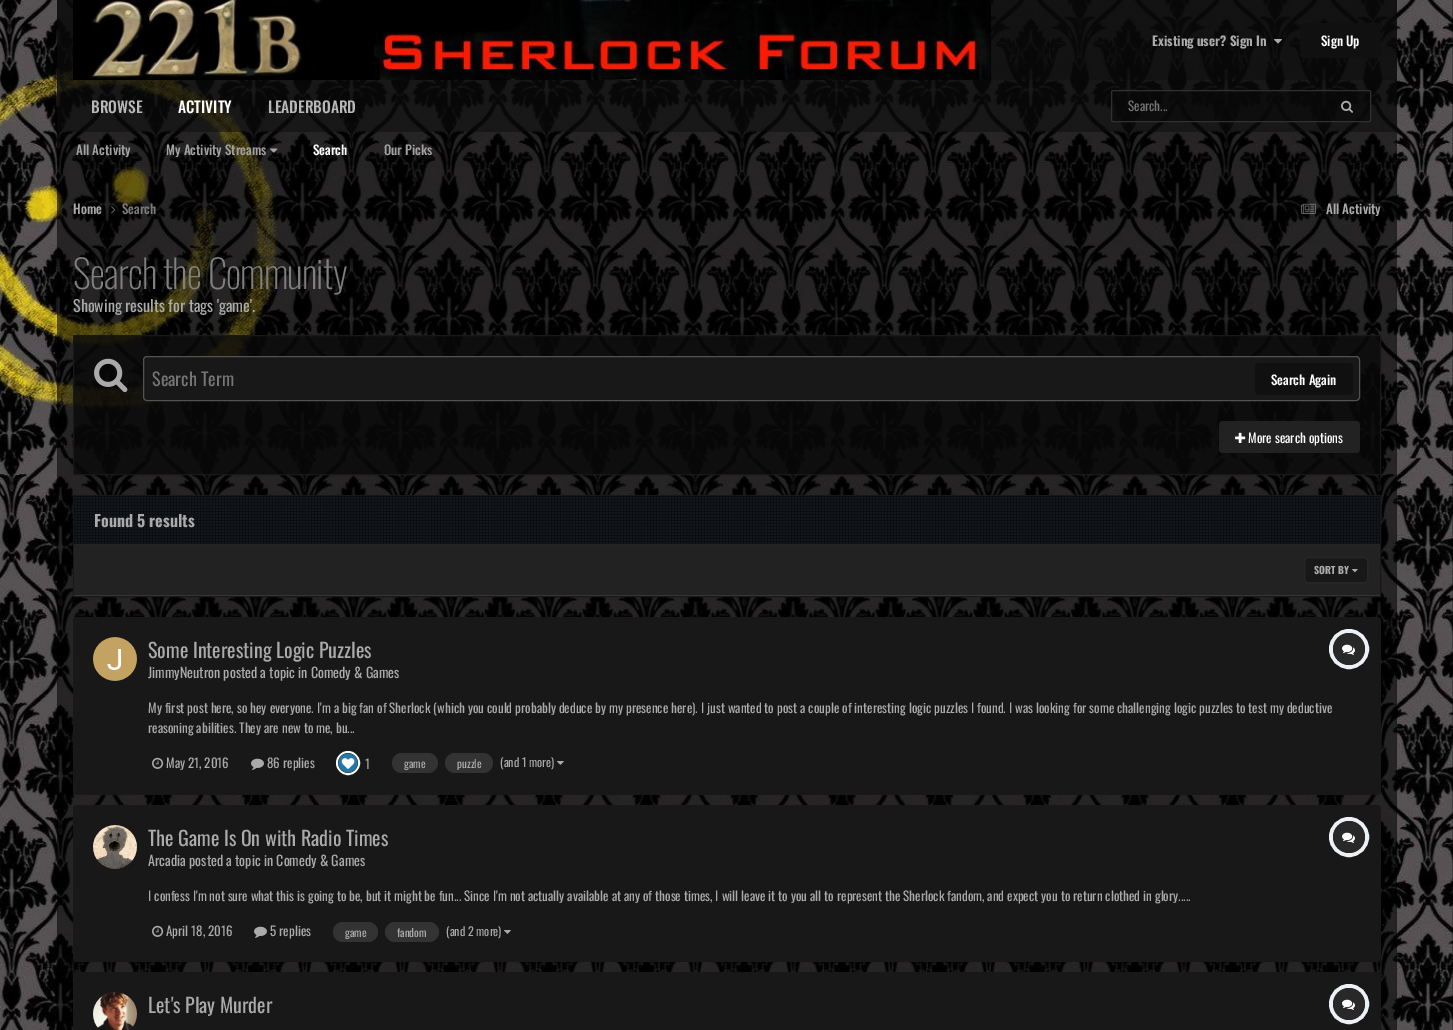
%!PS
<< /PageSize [1453 1030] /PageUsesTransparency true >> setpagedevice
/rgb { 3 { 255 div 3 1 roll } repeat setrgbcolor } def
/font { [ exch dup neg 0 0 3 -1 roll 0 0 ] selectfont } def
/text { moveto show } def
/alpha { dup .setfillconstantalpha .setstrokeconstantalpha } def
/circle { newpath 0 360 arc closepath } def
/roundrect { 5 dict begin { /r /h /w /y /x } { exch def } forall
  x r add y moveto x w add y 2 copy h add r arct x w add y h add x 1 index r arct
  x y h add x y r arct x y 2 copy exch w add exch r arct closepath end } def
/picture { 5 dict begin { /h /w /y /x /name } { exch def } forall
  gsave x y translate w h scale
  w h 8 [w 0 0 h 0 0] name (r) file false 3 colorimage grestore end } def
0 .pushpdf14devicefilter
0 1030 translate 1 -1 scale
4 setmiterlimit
255 255 255 rgb
0 0 1453 1030 rectfill
(img_01.rgb) 0 0 1453 1030 picture
0.87 alpha
9 9 9 rgb
57 0 1340 80 rectfill
1 alpha
(img_02.rgb) 73 0 918 80 picture
(img_03.rgb) 1274 39 8 5 picture
16 16 16 rgb
1300 23 81 35 4 roundrect fill
0.8 alpha
9 9 9 rgb
57 80 1340 52 rectfill
0.1 alpha
0 0 0 rgb
57 80 1 14 rectfill
0.56 alpha
57 132 1340 50 rectfill
1 alpha
(img_04.rgb) 270 148 8 5 picture
0.67 alpha
9 9 9 rgb
1111.5 90.5 259 31 1.5 roundrect fill
1 alpha
48 48 48 rgb
1111.5 90.5 259 31 1.5 roundrect stroke
(img_05.rgb) 1341 100 12 13 picture
0.1 alpha
0 0 0 rgb
1396 132 1 50 rectfill
57 170 1 2 rectfill
0.56 alpha
57 182 1340 848 rectfill
0.1 alpha
1396 182 1 848 rectfill
57 191 1 745 rectfill
1 alpha
(img_06.rgb) 111 206 5 8 picture
(img_07.rgb) 1301 203 15 11 picture
0.8 alpha
9 9 9 rgb
73.5 335.5 moveto 1307 0 rlineto 0 139 rlineto -1307 0 rlineto closepath fill
1 alpha
24 24 24 rgb
73.5 335.5 moveto 1307 0 rlineto 0 139 rlineto -1307 0 rlineto closepath stroke
(img_08.rgb) 94 358 34 35 picture
143 356 1217 45 4 roundrect fill
0.4 alpha
170 170 170 rgb
143.5 356.5 1216 44 3.5 roundrect stroke
1 alpha
16 16 16 rgb
1255 363 98 32 4 roundrect fill
34 34 34 rgb
1219 421 141 32 4 roundrect fill
(img_09.rgb) 1235 432 11 11 picture
24 24 24 rgb
73.5 495.5 1307 101 rectstroke
(img_10.rgb) 74 496 1306 48 picture
34 37 39 rgb
74 544 1306 1 rectfill
34 34 34 rgb
74 545 1306 50 rectfill
54 54 54 rgb
74 595 1306 1 rectfill
24 24 24 rgb
1304 557 64 26 4 roundrect fill
(img_11.rgb) 1352 569 6 4 picture
0.1 alpha
170 170 170 rgb
1304.5 557.5 63 25 3.5 roundrect stroke
1 alpha
24 24 24 rgb
73 617 1308 178 4 roundrect fill
(img_12.rgb) 93 637 44 44 picture
237 240 244 rgb
4 setlinewidth
1349 649 18 circle stroke
40 40 40 rgb
1349 649 16 circle fill
(img_13.rgb) 1342 644 13 11 picture
(img_14.rgb) 152 757 12 12 picture
(img_15.rgb) 251 758 13 12 picture
255 255 255 rgb
2 setlinewidth
348 763 11 circle stroke
(img_16.rgb) 338 753 20 20 picture
51 51 51 rgb
392 753 46 20 10 roundrect fill
445 753 48 20 10 roundrect fill
(img_17.rgb) 557 761 7 4 picture
24 24 24 rgb
73 805 1308 157 4 roundrect fill
(img_18.rgb) 93 825 44 44 picture
237 240 244 rgb
4 setlinewidth
1349 837 18 circle stroke
40 40 40 rgb
1349 837 16 circle fill
(img_13.rgb) 1342 832 13 11 picture
(img_14.rgb) 152 925 12 12 picture
(img_15.rgb) 254 926 13 12 picture
51 51 51 rgb
333 922 45 20 10 roundrect fill
385 922 54 20 10 roundrect fill
(img_17.rgb) 504 930 7 4 picture
24 24 24 rgb
73 972 1308 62 4 roundrect fill
(img_19.rgb) 93 992 44 38 picture
237 240 244 rgb
1349 1004 18 circle stroke
40 40 40 rgb
1349 1004 16 circle fill
(img_13.rgb) 1342 999 13 11 picture
/Oswald-Bold 13 font
170 170 170 rgb
(Existing user? Sign In) 1152 46 text
/Oswald-Medium 13 font
255 255 255 rgb
(Sign Up) 1321 46 text
/Oswald-Medium 15.5 font
(ACTIVITY) 178 113 text
/Oswald-Medium 13 font
161 161 161 rgb
(All Activity) 76 155 text
(My Activity Streams) 166 155 text
255 255 255 rgb
(Search) 313 155 text
161 161 161 rgb
(Our Picks) 384 155 text
/Oswald-Medium 15.5 font
184 184 184 rgb
(BROWSE) 91 113 text
(LEADERBOARD) 268 113 text
/Oswald-Regular 13 font
117 117 117 rgb
(Search...) 1128 111 text
/Oswald-Medium 13 font
170 170 170 rgb
(Home) 73 214 text
123 123 122 rgb
(Search) 122 214 text
170 170 170 rgb
(All Activity) 1326 214 text
/Oswald-ExtraLight 39 font
128 128 128 rgb
73 289 moveto -0.75 0 (Search the Community) ashow
/Oswald-Regular 16 font
170 170 170 rgb
(Showing results for tags 'game'.) 73 312 text
/Oswald-Regular 18 font
117 117 117 rgb
(Search Term) 152 386 text
/Oswald-Medium 13 font
255 255 255 rgb
(Search Again) 1271 385 text
/Oswald-Regular 13 font
(More search options) 1248 443 text
/Oswald-Bold 16 font
170 170 170 rgb
(Found 5 results) 94 527 text
/Oswald-Bold 10 font
(SORT BY) 1314 574 text
/Oswald-Regular 20 font
(Some Interesting Logic Puzzles) 148 658 text
/Oswald-Regular 14 font
(JimmyNeutron posted a topic in Comedy & Games) 148 678 text
/Oswald-Regular 13 font
(My first post here, so hey everyone. I'm a big fan of Sherlock \(which you could probably deduce by my presence here\). I just wanted to post a couple of interesting logic puzzles I found. I was looking for some challenging logic puzzles to test my deductive) 148 713 text
(reasoning abilities. They are new to me, bu...) 148 733 text
(May 21, 2016) 166 768 text
(86 replies) 267 768 text
(1) 365 769 text
/Oswald-Regular 11 font
(game) 404 768 text
(puzzle) 457 768 text
/Oswald-Regular 12 font
(\(and 1 more\)) 500 767 text
/Oswald-Regular 20 font
(The Game Is On with Radio Times) 148 846 text
/Oswald-Regular 14 font
(Arcadia posted a topic in Comedy & Games) 148 866 text
/Oswald-Regular 13 font
(I confess I'm not sure what this is going to be, but it might be fun... Since I'm not actually available at any of those times, I will leave it to you all to represent the Sherlock fandom, and expect you to return clothed in glory.....) 148 901 text
(April 18, 2016) 166 936 text
(5 replies) 270 936 text
/Oswald-Regular 11 font
(game) 345 937 text
(fandom) 397 937 text
/Oswald-Regular 12 font
(\(and 2 more\)) 446 936 text
/Oswald-Regular 20 font
(Let's Play Murder) 148 1013 text
.poppdf14devicefilter showpage
